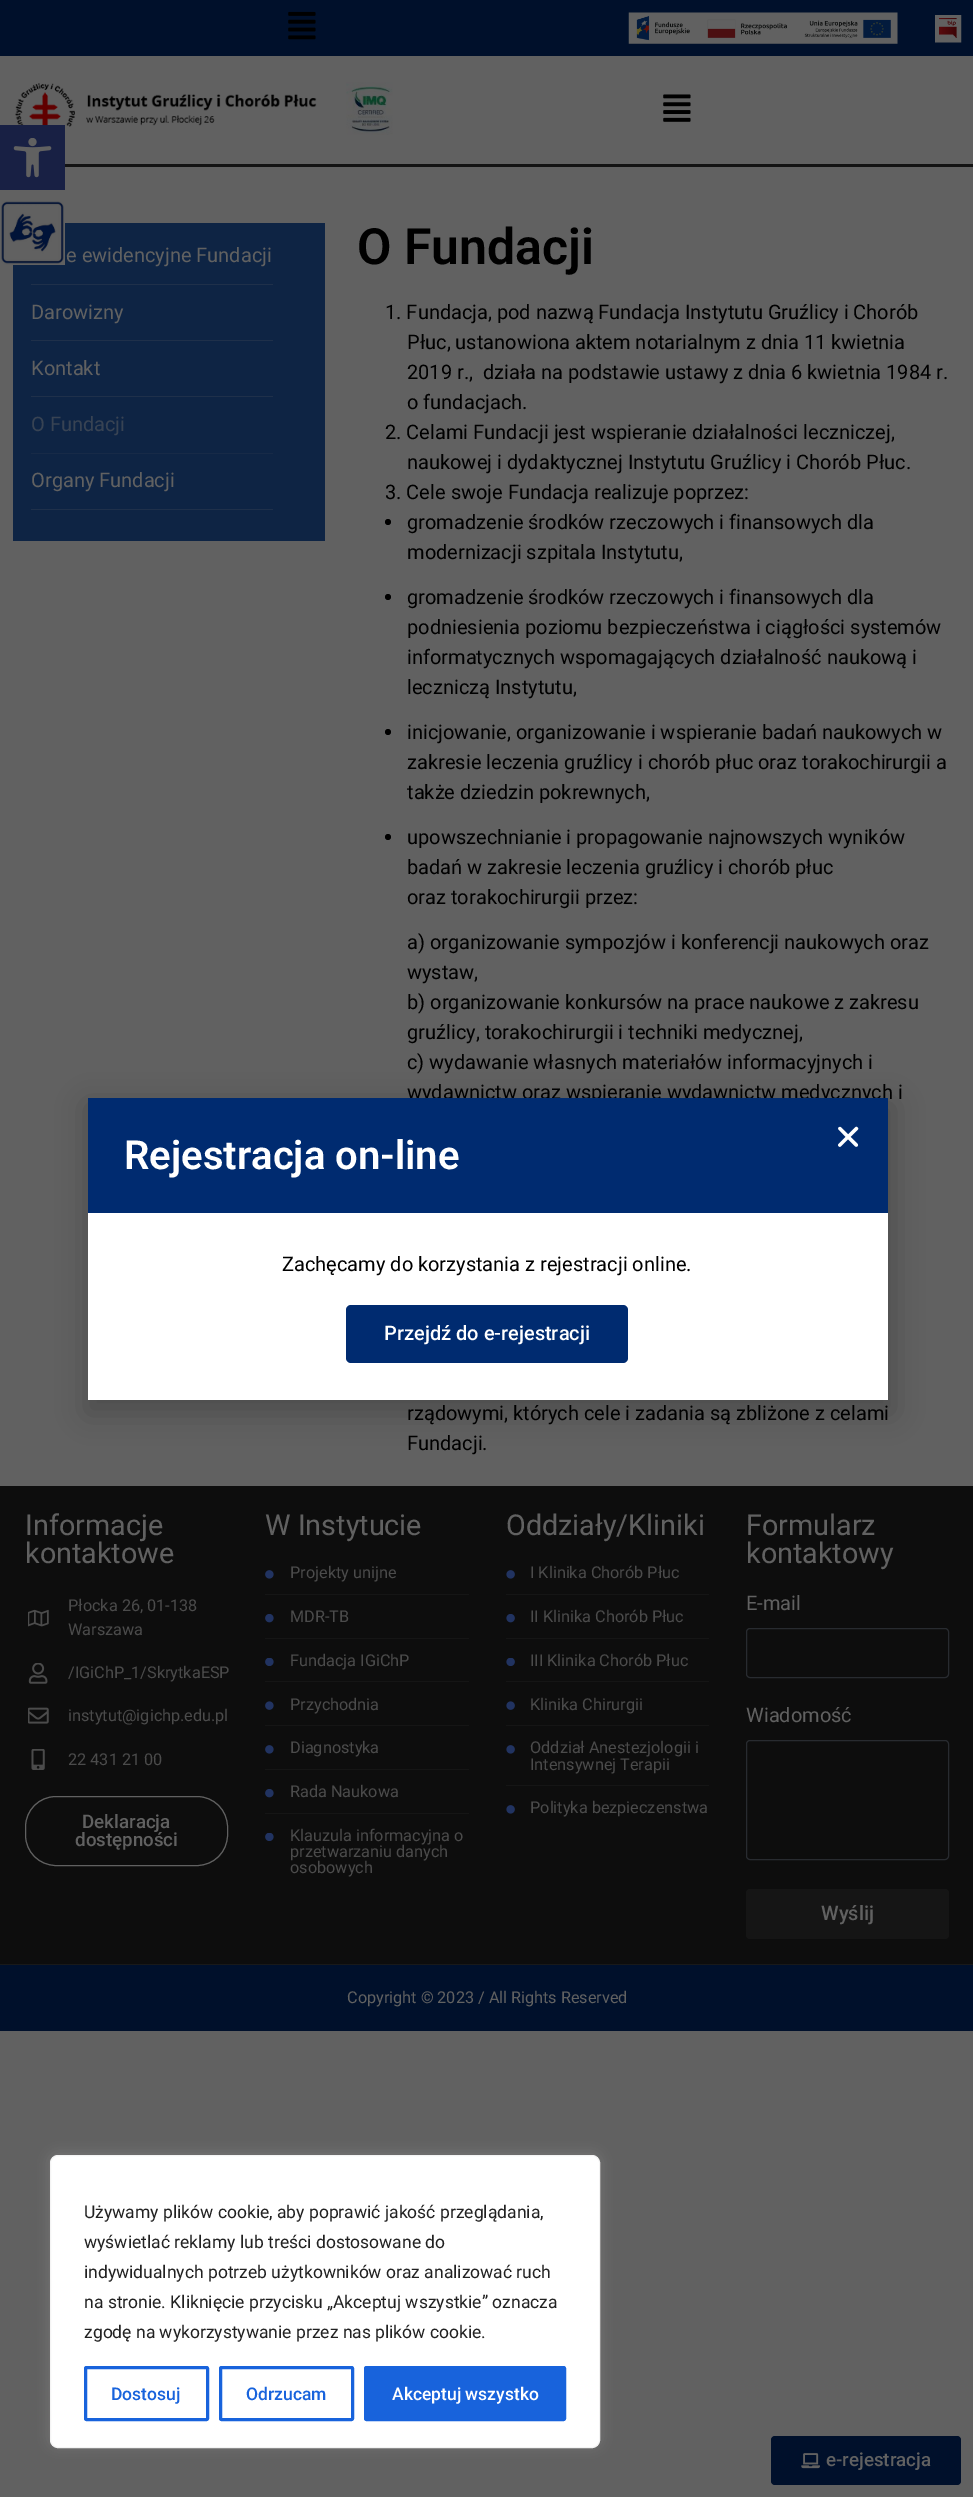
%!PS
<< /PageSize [973 2497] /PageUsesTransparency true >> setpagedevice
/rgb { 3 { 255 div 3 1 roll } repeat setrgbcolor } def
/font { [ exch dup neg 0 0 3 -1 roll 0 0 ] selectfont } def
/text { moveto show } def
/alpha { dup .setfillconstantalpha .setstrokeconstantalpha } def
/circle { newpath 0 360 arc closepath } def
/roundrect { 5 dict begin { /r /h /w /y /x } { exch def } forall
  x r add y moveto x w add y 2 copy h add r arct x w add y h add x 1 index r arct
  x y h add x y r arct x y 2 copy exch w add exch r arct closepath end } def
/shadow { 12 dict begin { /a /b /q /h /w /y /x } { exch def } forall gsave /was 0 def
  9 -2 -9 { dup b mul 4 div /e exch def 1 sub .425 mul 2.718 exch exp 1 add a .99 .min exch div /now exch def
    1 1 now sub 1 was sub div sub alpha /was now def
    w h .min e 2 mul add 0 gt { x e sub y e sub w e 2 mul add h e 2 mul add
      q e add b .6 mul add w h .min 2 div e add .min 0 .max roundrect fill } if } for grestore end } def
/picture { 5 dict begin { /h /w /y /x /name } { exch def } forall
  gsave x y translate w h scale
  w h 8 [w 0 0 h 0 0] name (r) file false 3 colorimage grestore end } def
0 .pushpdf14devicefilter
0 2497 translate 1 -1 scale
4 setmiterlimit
97 97 97 rgb
0 0 973 2497 rectfill
(img_06.rgb) 15 83 302 54 picture
24 32 68 rgb
0 125 65 65 rectfill
(img_01.rgb) 13 138 39 40 picture
14 36 68 rgb
13 223 312 318 rectfill
(img_02.rgb) 1 201 64 64 picture
0 16 43 rgb
0 0 973 56 rectfill
(img_03.rgb) 288 11 28 29 picture
(img_04.rgb) 628 12 270 32 picture
(img_05.rgb) 935 15 27 28 picture
19 19 19 rgb
65 164 908 3 rectfill
(img_07.rgb) 346 82 47 53 picture
(img_08.rgb) 663 94 28 28 picture
31 48 74 rgb
31 284 242 1 rectfill
31 340 242 1 rectfill
31 396 242 1 rectfill
23 42 71 rgb
31 453 242 1 rectfill
31 48 74 rgb
31 509 242 1 rectfill
0 0 0 rgb
388 522 3 circle fill
388 597 3 circle fill
388 732 3 circle fill
388 837 3 circle fill
13 13 13 rgb
0 1486 973 478 rectfill
(img_09.rgb) 28 1609 21 18 picture
(img_10.rgb) 28 1663 20 21 picture
(img_11.rgb) 28 1707 21 17 picture
(img_12.rgb) 31 1749 14 21 picture
97 97 97 rgb
25.5 1796.5 202 69 30.5 roundrect stroke
(img_13.rgb) 265 1570 9 9 picture
21 21 21 rgb
265 1594 204 1 rectfill
(img_14.rgb) 265 1614 9 9 picture
265 1638 204 1 rectfill
(img_15.rgb) 265 1658 9 8 picture
265 1681 204 1 rectfill
(img_16.rgb) 265 1701 9 9 picture
265 1725 204 1 rectfill
(img_13.rgb) 265 1745 9 9 picture
265 1769 204 1 rectfill
(img_14.rgb) 265 1789 9 9 picture
265 1813 204 1 rectfill
(img_15.rgb) 265 1833 9 8 picture
(img_17.rgb) 506 1570 9 9 picture
506 1594 203 1 rectfill
(img_18.rgb) 506 1614 9 9 picture
506 1638 203 1 rectfill
(img_19.rgb) 506 1658 9 8 picture
506 1681 203 1 rectfill
(img_20.rgb) 506 1701 9 9 picture
506 1725 203 1 rectfill
(img_17.rgb) 506 1745 9 9 picture
506 1785 203 1 rectfill
(img_17.rgb) 506 1805 9 9 picture
40 43 48 rgb
746.5 1628.5 202 49 3.5 roundrect stroke
746.5 1740.5 202 119 3.5 roundrect stroke
21 21 21 rgb
746 1889 203 50 4 roundrect fill
0 16 43 rgb
0 1965 973 66 rectfill
25 25 25 rgb
0 1964 973 1 rectfill
0 0 0 rgb
86 1104 808 310 0 14.5 0.2 shadow
255 255 255 rgb
88 1213 800 187 rectfill
0 43 112 rgb
346 1305 282 58 5 roundrect fill
172 171 171 rgb
50 2154 550 292 8 6 0.3 shadow
255 255 255 rgb
50.5 2155.5 549 292 7.5 roundrect gsave fill grestore
244 244 244 rgb
stroke
24 99 220 rgb
3 setlinewidth
85.5 2367.5 122 52 1 roundrect stroke
220.5 2367.5 132 52 1 roundrect stroke
365.5 2367.5 199 52 1 roundrect gsave fill grestore
stroke
0 16 43 rgb
771 2436 190 49 4 roundrect fill
(img_22.rgb) 801 2453 19 16 picture
/Roboto-Regular 20 font
97 97 97 rgb
(e ewidencyjne Fundacji) 66 262 text
(Darowizny) 31 319 text
(Kontakt) 31 375 text
56 67 83 rgb
(O Fundacji) 31 431 text
97 97 97 rgb
(Organy Fundacji) 31 487 text
/Roboto-SemiBold 50 font
0 0 0 rgb
(O Fundacji) 357 264 text
/Roboto-Regular 20 font
(1. Fundacja, pod nazwą Fundacja Instytutu Gruźlicy i Chorób) 385 319 text
(Płuc, ustanowiona aktem notarialnym z dnia 11 kwietnia) 407 349 text
(2019 r.,  działa na podstawie ustawy z dnia 6 kwietnia 1984 r.) 407 379 text
(o fundacjach.) 407 409 text
(2. Celami Fundacji jest wspieranie działalności leczniczej,) 385 439 text
(naukowej i dydaktycznej Instytutu Gruźlicy i Chorób Płuc.) 407 469 text
(3. Cele swoje Fundacja realizuje poprzez:) 385 499 text
(gromadzenie środków rzeczowych i finansowych dla) 407 529 text
(modernizacji szpitala Instytutu,) 407 559 text
(gromadzenie środków rzeczowych i finansowych dla) 407 604 text
(podniesienia poziomu bezpieczeństwa i ciągłości systemów) 407 634 text
(informatycznych wspomagających działalność naukową i) 407 664 text
(leczniczą Instytutu,) 407 694 text
(inicjowanie, organizowanie i wspieranie badań naukowych w) 407 739 text
(zakresie leczenia gruźlicy i chorób płuc oraz torakochirurgii a) 407 769 text
(także dziedzin pokrewnych,) 407 799 text
(upowszechnianie i propagowanie najnowszych wyników) 407 844 text
(badań w zakresie leczenia gruźlicy i chorób płuc) 407 874 text
(oraz torakochirurgii przez:) 407 904 text
(a\) organizowanie sympozjów i konferencji naukowych oraz) 407 949 text
(wystaw,) 407 979 text
(b\) organizowanie konkursów na prace naukowe z zakresu) 407 1009 text
(gruźlicy, torakochirurgii i techniki medycznej,) 407 1039 text
(c\) wydawanie własnych materiałów informacyjnych i) 407 1069 text
(wydawnictw oraz wspieranie wydawnictw medycznych i) 407 1099 text
(rządowymi, których cele i zadania są zbliżone z celami) 407 1420 text
(Fundacji.) 407 1450 text
/Roboto-Regular 28.75 font
97 97 97 rgb
(Informacje) 25 1535 text
(kontaktowe) 25 1563 text
/Roboto-Regular 16.25 font
75 75 75 rgb
(Płocka 26, 01-138) 68 1611 text
(Warszawa) 68 1635 text
(/IGiChP_1/SkrytkaESP) 68 1678 text
(instytut@igichp.edu.pl) 68 1721 text
(22 431 21 00) 68 1765 text
/Roboto-Medium 18.75 font
97 97 97 rgb
(Deklaracja) 82 1828 text
(dostępności) 75 1846 text
/Roboto-Regular 28.75 font
(W Instytucie) 265 1535 text
/Roboto-Regular 16.25 font
75 75 75 rgb
(Projekty unijne) 290 1578 text
(MDR-TB) 290 1622 text
(Fundacja IGiChP) 290 1666 text
(Przychodnia) 290 1710 text
(Diagnostyka) 290 1753 text
(Rada Naukowa) 290 1797 text
(Klauzula informacyjna o) 290 1841 text
(przetwarzaniu danych) 290 1857 text
(osobowych) 290 1873 text
/Roboto-Regular 28.75 font
97 97 97 rgb
(Oddziały/Kliniki) 506 1535 text
/Roboto-Regular 16.25 font
75 75 75 rgb
(I Klinika Chorób Płuc) 530 1578 text
(II Klinika Chorób Płuc) 530 1622 text
(III Klinika Chorób Płuc) 530 1666 text
(Klinika Chirurgii) 530 1710 text
(Oddział Anestezjologii i) 530 1753 text
(Intensywnej Terapii) 530 1770 text
(Polityka bezpieczenstwa) 530 1813 text
/Roboto-Regular 28.75 font
97 97 97 rgb
(Formularz) 746 1535 text
(kontaktowy) 746 1563 text
/Roboto-Regular 20 font
(E-mail) 746 1610 text
(Wiadomość) 746 1722 text
/Roboto-Medium 20 font
(Wyślij) 821 1920 text
/Roboto-Regular 16.25 font
(Copyright © 2023 / All Rights Reserved) 347 2003 text
0 43 112 rgb
88 1098 800 115 rectfill
(img_21.rgb) 838 1126 21 21 picture
/Roboto-SemiBold 40 font
255 255 255 rgb
(Rejestracja on-line) 124 1169 text
/Roboto-Regular 20 font
0 0 0 rgb
(Zachęcamy do korzystania z rejestracji online.) 282 1271 text
/Roboto-Medium 20 font
255 255 255 rgb
(Przejdź do e-rejestracji) 384 1340 text
/Roboto-Regular 17.5 font
33 33 33 rgb
(Używamy plików cookie, aby poprawić jakość przeglądania,) 84 2218 text
(wyświetlać reklamy lub treści dostosowane do) 84 2248 text
(indywidualnych potrzeb użytkowników oraz analizować ruch) 84 2278 text
(na stronie. Kliknięcie przycisku „Akceptuj wszystkie” oznacza) 84 2308 text
(zgodę na wykorzystywanie przez nas plików cookie.) 84 2338 text
/Roboto-Medium 17.5 font
24 99 220 rgb
(Dostosuj) 111 2400 text
(Odrzucam) 246 2400 text
255 255 255 rgb
(Akceptuj wszystko) 392 2400 text
/Roboto-Medium 18.75 font
97 97 97 rgb
(e-rejestracja) 826 2466 text
.poppdf14devicefilter showpage
